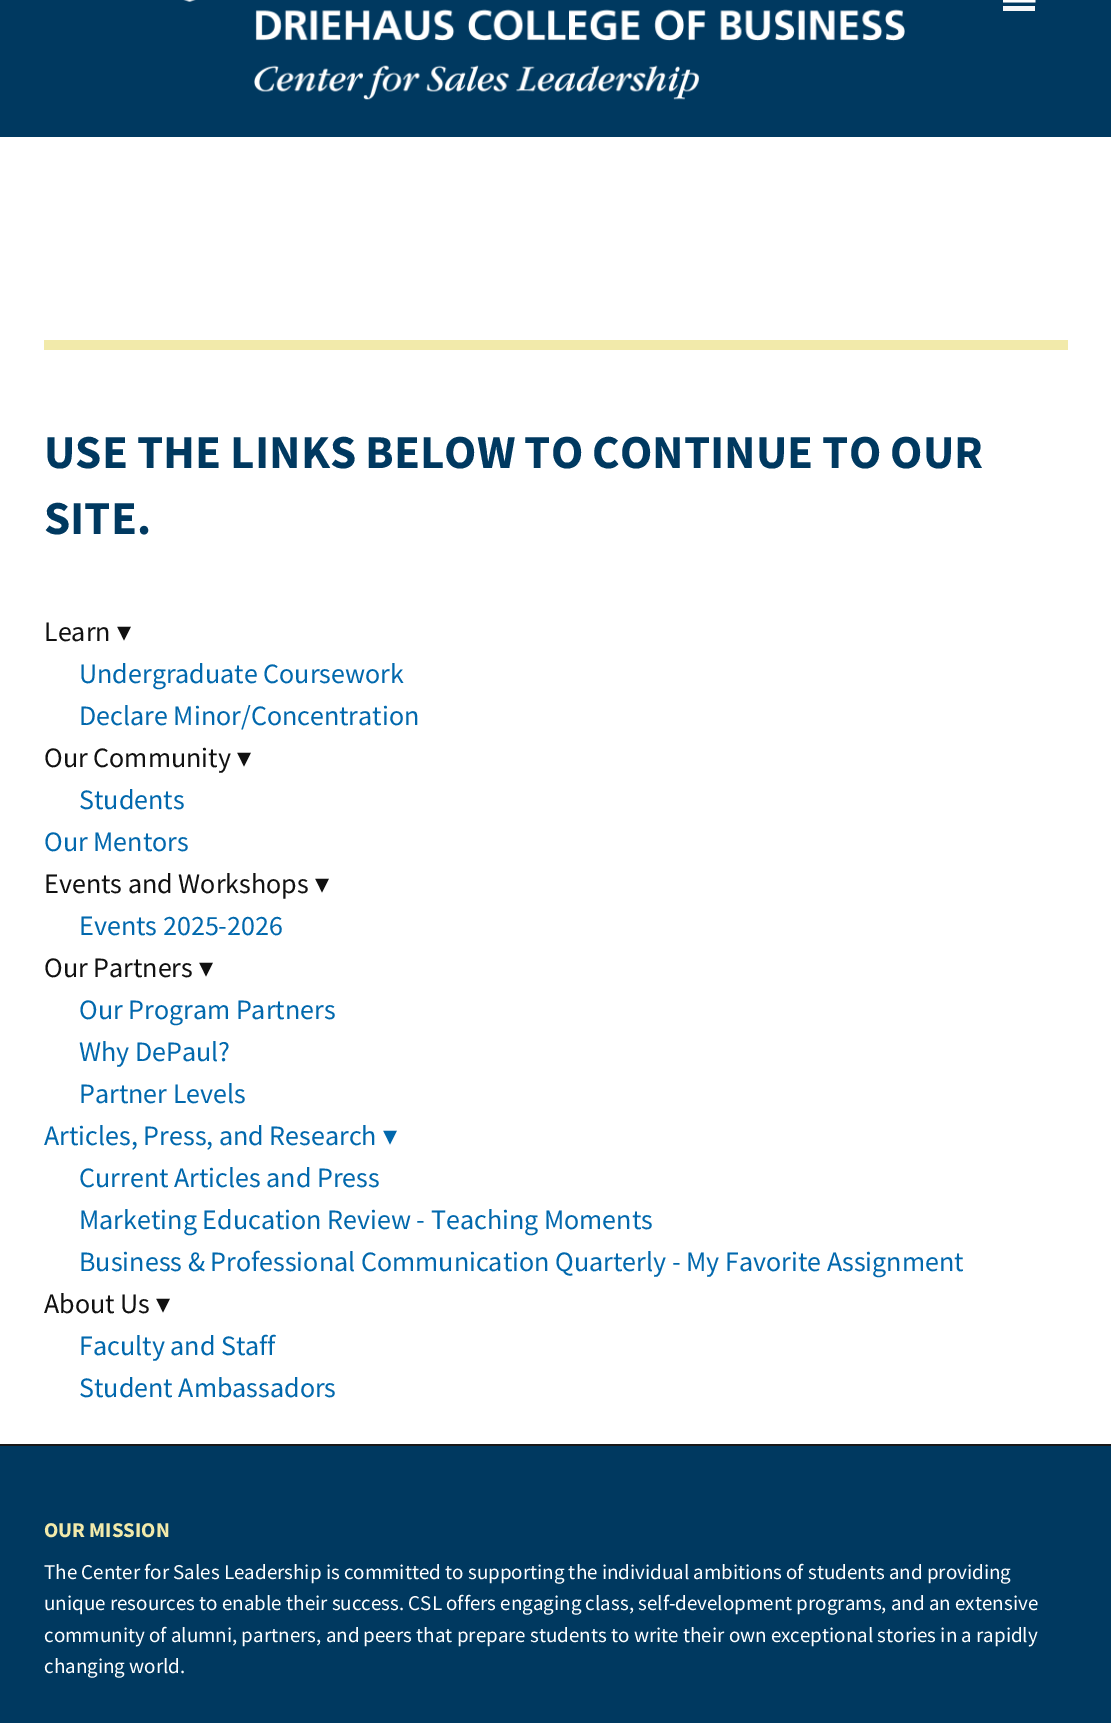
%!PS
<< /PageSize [1111 1723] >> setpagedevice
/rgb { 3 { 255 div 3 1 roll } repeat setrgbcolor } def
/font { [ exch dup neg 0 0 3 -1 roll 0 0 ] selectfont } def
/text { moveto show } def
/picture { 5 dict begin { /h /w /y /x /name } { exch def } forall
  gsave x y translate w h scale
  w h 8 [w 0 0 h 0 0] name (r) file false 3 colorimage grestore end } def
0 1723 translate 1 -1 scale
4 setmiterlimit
255 255 255 rgb
0 0 1111 1723 rectfill
0 57 96 rgb
0 0 1111 137 rectfill
(img_01.rgb) 183 0 722 100 picture
255 255 255 rgb
4.8 setlinewidth
2 setlinecap
1005.5 0 moveto 27.5 0 rlineto stroke
245 247 249 rgb
1003 6 32 5 rectfill
242 234 170 rgb
44 340 1024 10 rectfill
0 57 96 rgb
0 1446 1111 277 rectfill
24 24 24 rgb
0 1444 1111 2 rectfill
/SourceSansPro-Bold 47.25 font
0 57 96 rgb
(USE THE LINKS BELOW TO CONTINUE TO OUR) 44 468 text
(SITE.) 44 534 text
/SourceSansPro-Regular 28 font
17 17 17 rgb
(Learn) 44 641 text
/DejaVuSans-Regular 28 font
(▾) 117 641 text
/SourceSansPro-Regular 28 font
1 104 173 rgb
(Undergraduate Coursework) 79 683 text
(Declare Minor/Concentration) 79 725 text
17 17 17 rgb
(Our Community) 44 767 text
/DejaVuSans-Regular 28 font
(▾) 237 767 text
/SourceSansPro-Regular 28 font
1 104 173 rgb
(Students) 79 809 text
(Our Mentors) 44 851 text
17 17 17 rgb
(Events and Workshops) 44 893 text
/DejaVuSans-Regular 28 font
(▾) 315 893 text
/SourceSansPro-Regular 28 font
1 104 173 rgb
(Events 2025-2026) 79 935 text
17 17 17 rgb
(Our Partners) 44 977 text
/DejaVuSans-Regular 28 font
(▾) 199 977 text
/SourceSansPro-Regular 28 font
1 104 173 rgb
(Our Program Partners) 79 1019 text
(Why DePaul?) 79 1061 text
(Partner Levels) 79 1103 text
(Articles, Press, and Research) 44 1145 text
/DejaVuSans-Regular 28 font
(▾) 383 1145 text
/SourceSansPro-Regular 28 font
(Current Articles and Press) 79 1187 text
(Marketing Education Review - Teaching Moments) 79 1229 text
(Business & Professional Communication Quarterly - My Favorite Assignment) 79 1271 text
17 17 17 rgb
(About Us) 44 1313 text
/DejaVuSans-Regular 28 font
(▾) 156 1313 text
/SourceSansPro-Regular 28 font
1 104 173 rgb
(Faculty and Staff) 79 1355 text
(Student Ambassadors) 79 1397 text
/SourceSansPro-Bold 21 font
242 234 170 rgb
(OUR MISSION) 44 1537 text
/SourceSansPro-Regular 21 font
255 255 255 rgb
(The Center for Sales Leadership is committed to supporting the individual ambitions of students and providing) 44 1579 text
(unique resources to enable their success. CSL offers engaging class, self-development programs, and an extensive) 44 1610 text
(community of alumni, partners, and peers that prepare students to write their own exceptional stories in a rapidly) 44 1642 text
(changing world.) 44 1673 text
showpage
